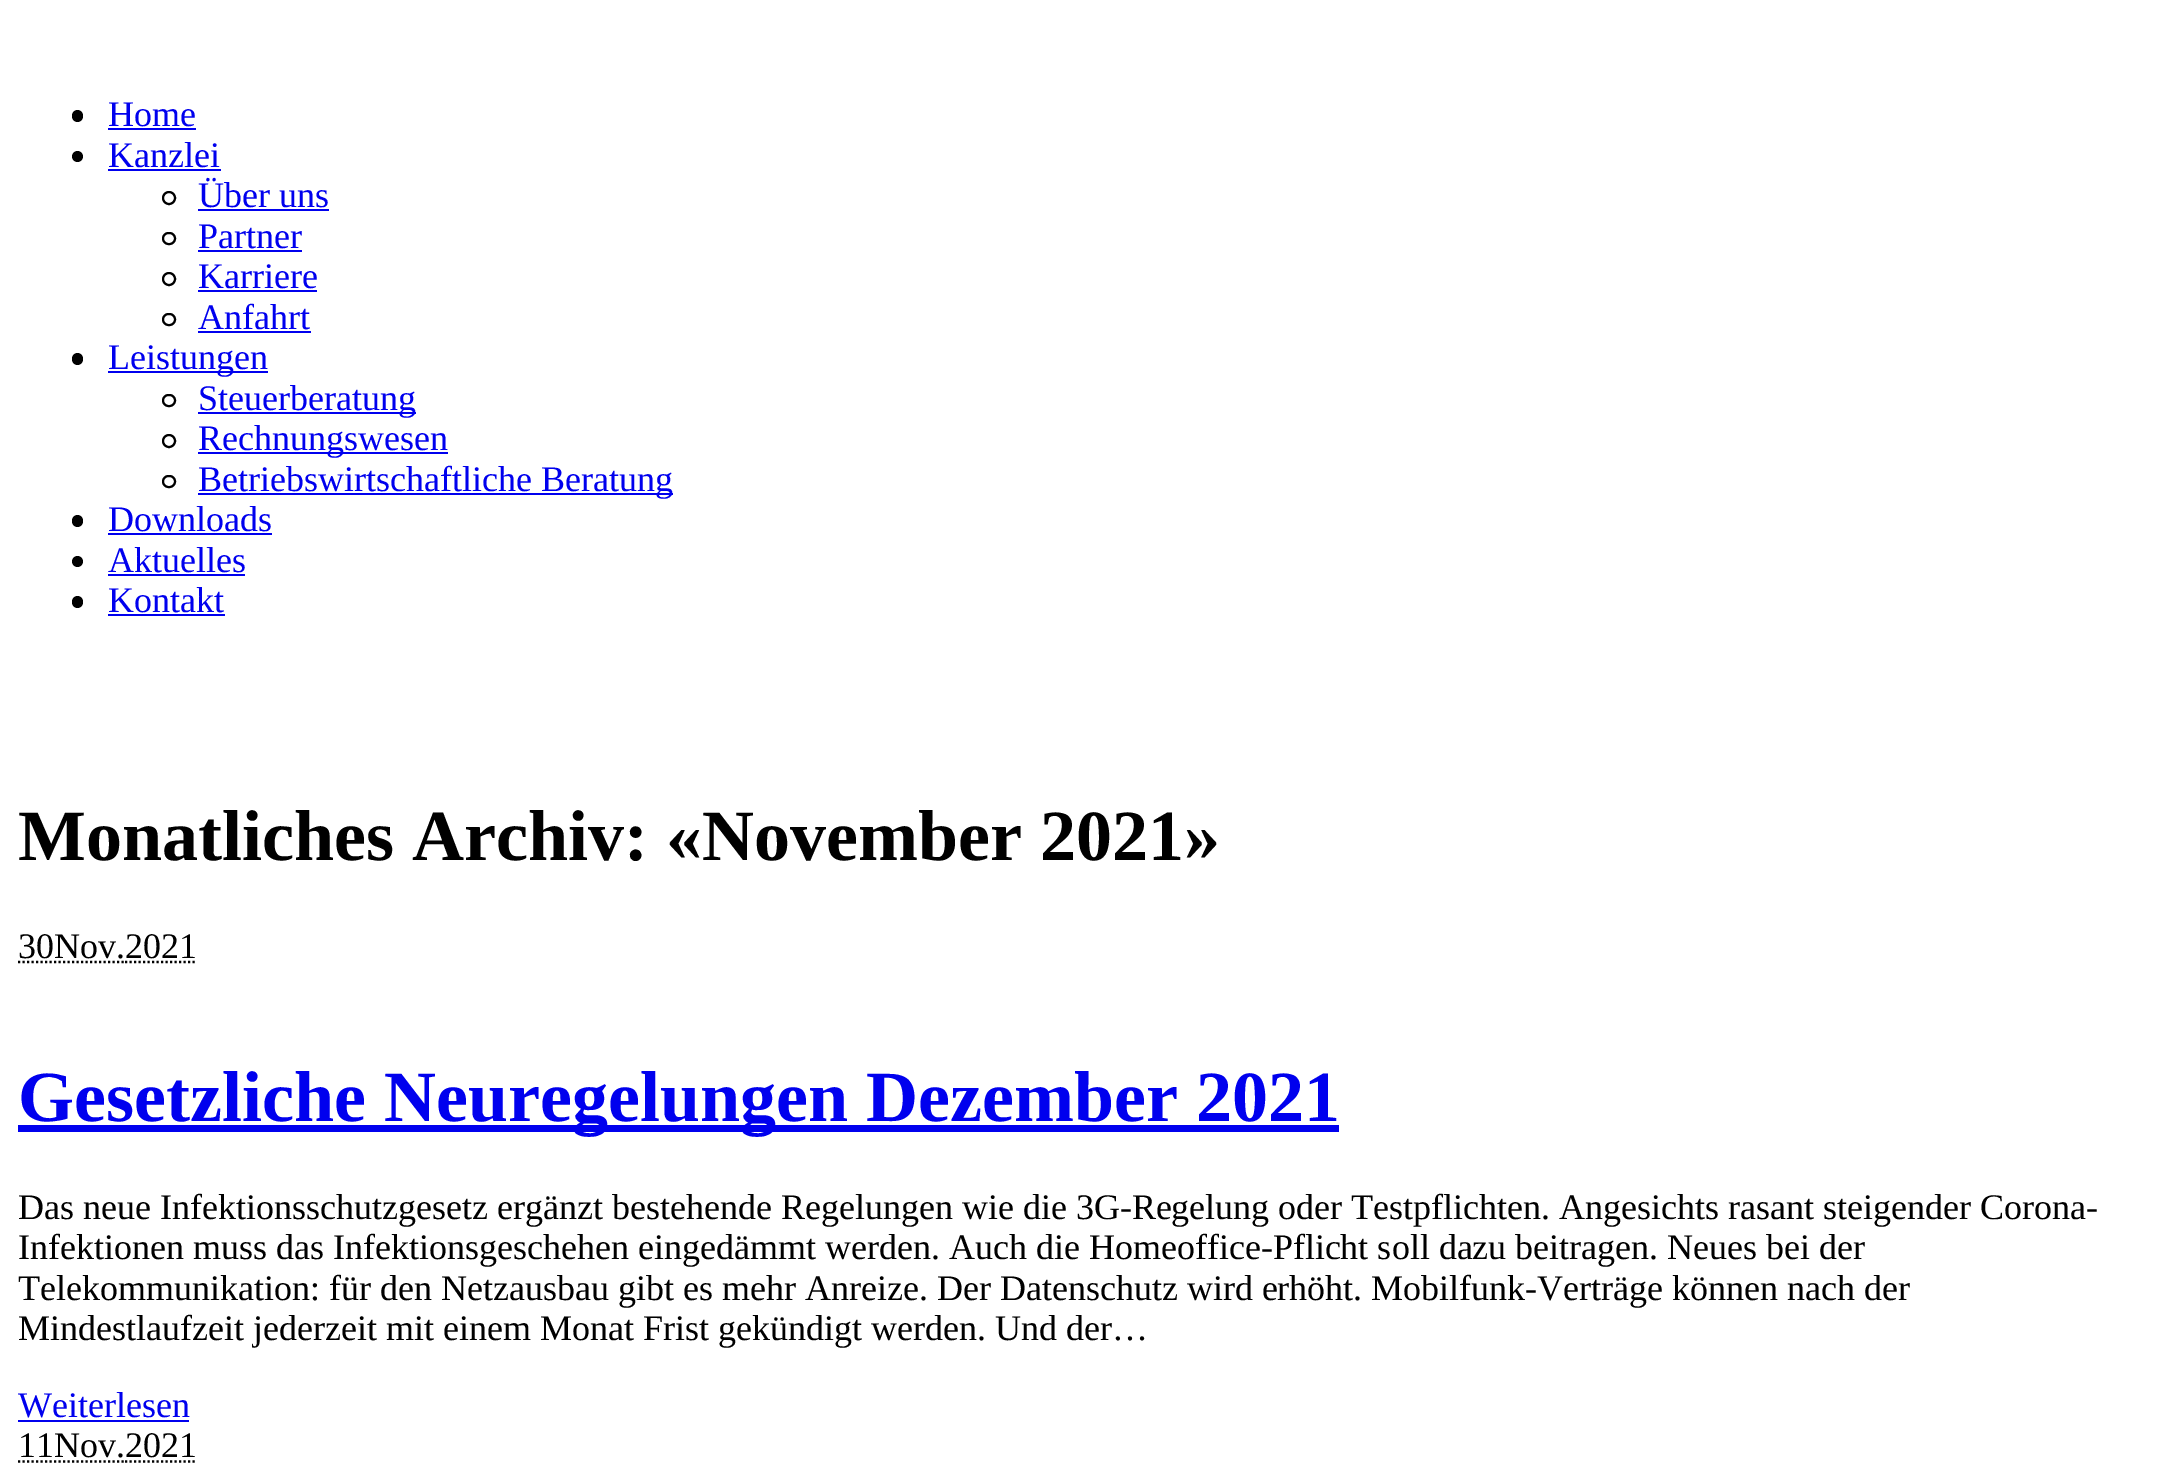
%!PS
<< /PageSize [2161 1471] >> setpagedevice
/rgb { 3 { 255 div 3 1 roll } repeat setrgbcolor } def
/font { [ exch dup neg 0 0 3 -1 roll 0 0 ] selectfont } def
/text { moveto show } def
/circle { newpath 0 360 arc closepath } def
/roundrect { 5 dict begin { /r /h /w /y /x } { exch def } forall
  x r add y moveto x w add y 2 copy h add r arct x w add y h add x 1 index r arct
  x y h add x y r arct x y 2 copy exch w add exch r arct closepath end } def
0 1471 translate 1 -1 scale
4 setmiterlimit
255 255 255 rgb
0 0 2161 1471 rectfill
0 0 0 rgb
72 110 11 12 5.5 roundrect fill
0 0 238 rgb
108 128 88 2 rectfill
0 0 0 rgb
77.5 156.5 5.5 circle fill
0 0 238 rgb
108 169 113 2 rectfill
0 0 0 rgb
2 setlinewidth
169 198 6 circle stroke
0 0 238 rgb
198 209 131 2 rectfill
0 0 0 rgb
163 233 12 11 5.5 roundrect stroke
0 0 238 rgb
198 250 104 2 rectfill
0 0 0 rgb
169 279 6 circle stroke
0 0 238 rgb
198 290 119 2 rectfill
0 0 0 rgb
163 314 12 11 5.5 roundrect stroke
0 0 238 rgb
198 331 113 2 rectfill
0 0 0 rgb
72 353 11 12 5.5 roundrect fill
0 0 238 rgb
108 371 160 2 rectfill
0 0 0 rgb
163 395 12 11 5.5 roundrect stroke
0 0 238 rgb
198 412 218 2 rectfill
0 0 0 rgb
169 441 6 circle stroke
0 0 238 rgb
198 452 250 2 rectfill
0 0 0 rgb
163 476 12 11 5.5 roundrect stroke
0 0 238 rgb
198 493 475 2 rectfill
0 0 0 rgb
72 515 11 12 5.5 roundrect fill
0 0 238 rgb
108 533 164 2 rectfill
0 0 0 rgb
77.5 561.5 5.5 circle fill
0 0 238 rgb
108 574 137 2 rectfill
0 0 0 rgb
72 596 11 12 5.5 roundrect fill
0 0 238 rgb
108 614 117 2 rectfill
0 0 0 rgb
2.2 setlinewidth
[2.25 2.25] 0 setdash
18 962 moveto 36 0 rlineto stroke
54 962 moveto 71 0 rlineto stroke
125 962 moveto 72 0 rlineto stroke
0 0 238 rgb
18 1125 1321 7 rectfill
18 1420 171 2 rectfill
0 0 0 rgb
18 1461.5 moveto 36 0 rlineto stroke
54 1461.5 moveto 71 0 rlineto stroke
125 1461.5 moveto 72 0 rlineto stroke
/LiberationSerif-Regular 36 font
0 0 238 rgb
(Home) 108 126 text
(Kanzlei) 108 167 text
(Über uns) 198 207 text
(Partner) 198 248 text
(Karriere) 198 288 text
(Anfahrt) 198 329 text
(Leistungen) 108 369 text
(Steuerberatung) 198 410 text
(Rechnungswesen) 198 450 text
(Betriebswirtschaftliche Beratung) 198 491 text
(Downloads) 108 531 text
(Aktuelles) 108 572 text
(Kontakt) 108 612 text
/LiberationSerif-Bold 72 font
0 0 0 rgb
(Monatliches Archiv: «November 2021») 18 860 text
/LiberationSerif-Regular 36 font
(30Nov.2021) 18 958 text
/LiberationSerif-Bold 72 font
0 0 238 rgb
(Gesetzliche Neuregelungen Dezember 2021) 18 1121 text
/LiberationSerif-Regular 36 font
0 0 0 rgb
(Das neue Infektionsschutzgesetz ergänzt bestehende Regelungen wie die 3G-Regelung oder Testpflichten. Angesichts rasant steigender Corona-) 18 1219 text
(Infektionen muss das Infektionsgeschehen eingedämmt werden. Auch die Homeoffice-Pflicht soll dazu beitragen. Neues bei der) 18 1259 text
(Telekommunikation: für den Netzausbau gibt es mehr Anreize. Der Datenschutz wird erhöht. Mobilfunk-Verträge können nach der) 18 1300 text
(Mindestlaufzeit jederzeit mit einem Monat Frist gekündigt werden. Und der…) 18 1340 text
0 0 238 rgb
(Weiterlesen) 18 1417 text
0 0 0 rgb
(11Nov.2021) 18 1457 text
showpage
